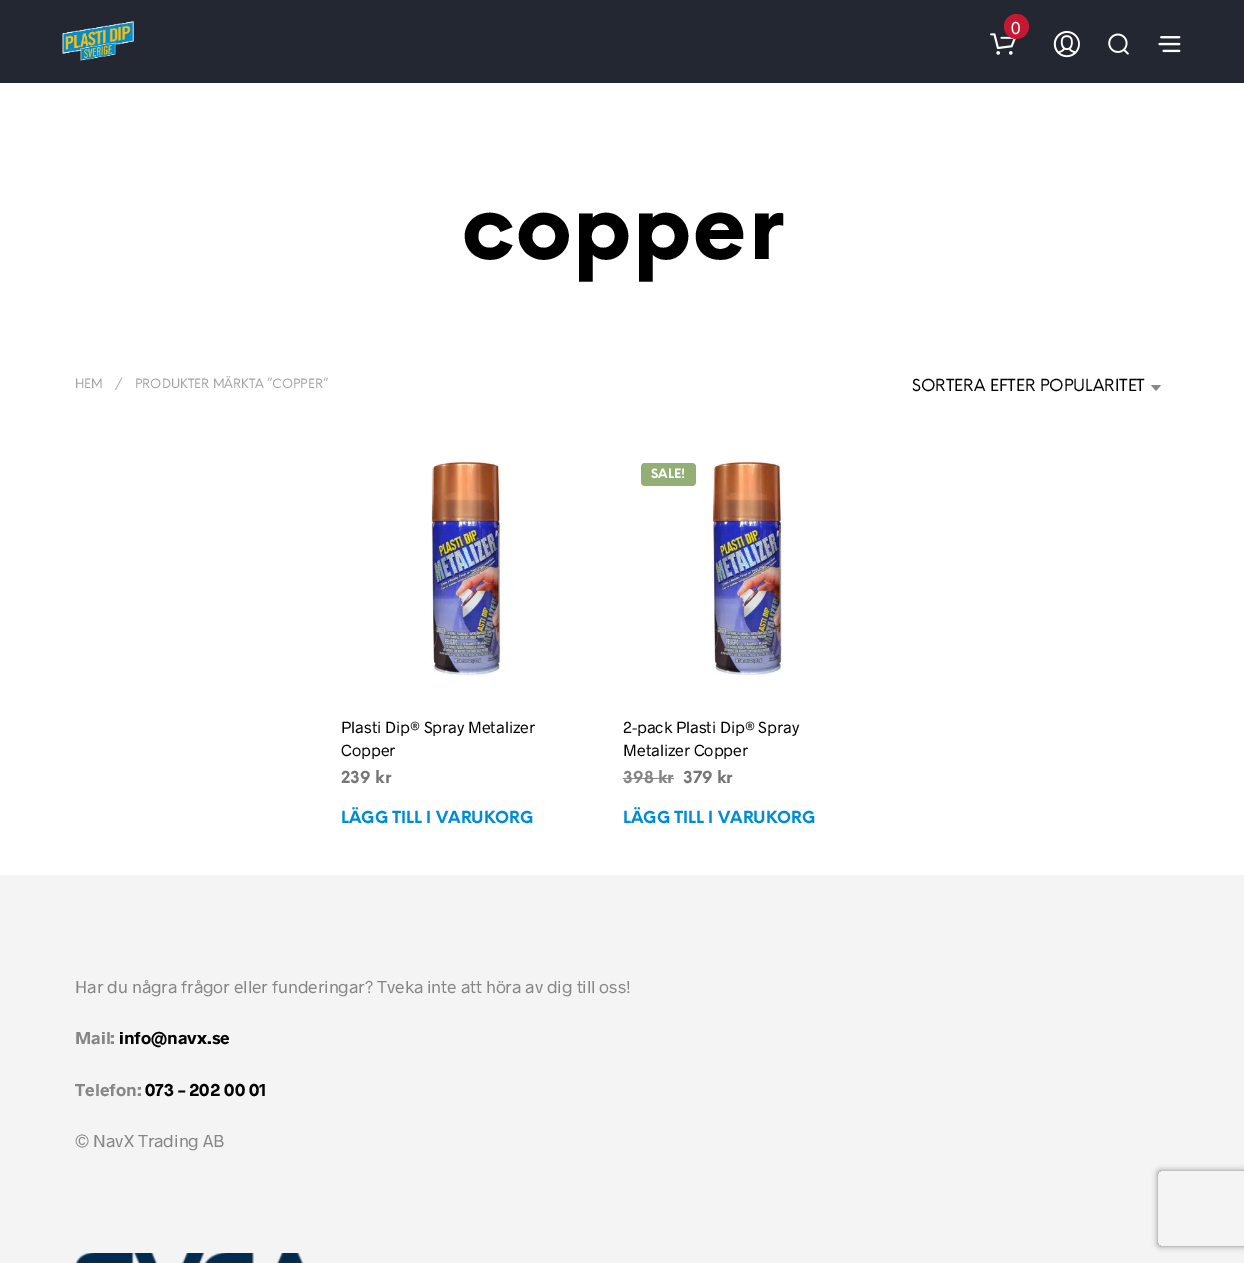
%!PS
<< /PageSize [1244 1263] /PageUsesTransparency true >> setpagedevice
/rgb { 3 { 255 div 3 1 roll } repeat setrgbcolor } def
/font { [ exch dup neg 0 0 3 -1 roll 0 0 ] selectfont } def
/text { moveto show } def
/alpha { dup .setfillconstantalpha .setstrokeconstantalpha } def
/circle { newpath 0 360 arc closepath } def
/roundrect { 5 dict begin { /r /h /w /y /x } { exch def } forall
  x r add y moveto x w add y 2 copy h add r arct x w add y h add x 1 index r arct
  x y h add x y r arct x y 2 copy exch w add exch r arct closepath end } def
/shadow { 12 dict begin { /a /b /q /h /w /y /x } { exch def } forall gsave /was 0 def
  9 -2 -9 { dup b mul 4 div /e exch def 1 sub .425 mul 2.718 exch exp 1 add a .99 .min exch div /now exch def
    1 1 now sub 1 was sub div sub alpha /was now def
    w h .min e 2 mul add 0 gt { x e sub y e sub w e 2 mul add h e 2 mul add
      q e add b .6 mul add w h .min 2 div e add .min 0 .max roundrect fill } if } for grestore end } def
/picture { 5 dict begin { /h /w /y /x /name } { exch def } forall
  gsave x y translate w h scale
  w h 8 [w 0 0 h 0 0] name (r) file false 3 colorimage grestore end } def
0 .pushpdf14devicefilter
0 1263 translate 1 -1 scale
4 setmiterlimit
255 255 255 rgb
0 0 1244 1263 rectfill
34 39 49 rgb
0 0 1244 83 rectfill
(img_01.rgb) 62 20 72 41 picture
(img_02.rgb) 990 33 26 22 picture
198 24 51 rgb
1016.5 26.5 12.5 circle fill
(img_03.rgb) 1053 30 27 28 picture
(img_04.rgb) 1108 33 21 22 picture
(img_05.rgb) 1158 36 23 17 picture
136 136 136 rgb
1151 385 moveto 10 0 rlineto -5 6 rlineto closepath fill
(img_06.rgb) 431 459 71 218 picture
147 175 118 rgb
641 463 55 23 4 roundrect fill
(img_07.rgb) 712 459 71 218 picture
244 244 244 rgb
0 875 1244 388 rectfill
(img_08.rgb) 75 1253 229 10 picture
gsave
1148 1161 moveto 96 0 rlineto 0 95 rlineto -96 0 rlineto closepath 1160.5 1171 moveto 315 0 rlineto 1.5 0 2.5 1 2.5 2.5 rcurveto 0 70 rlineto 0 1.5 -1 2.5 -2.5 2.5 rcurveto -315 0 rlineto -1.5 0 -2.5 -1 -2.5 -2.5 rcurveto 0 -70 rlineto 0 -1.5 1 -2.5 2.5 -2.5 rcurveto closepath eoclip newpath
128 128 128 rgb
1158 1171 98 75 2.5 3 1 shadow
grestore
/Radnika-Regular 17.5 font
255 255 255 rgb
(0) 1011 34 text
/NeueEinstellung-Bold 91 font
0 0 0 rgb
(copper) 461 259 text
/NeueEinstellung-Regular 12.5 font
161 161 161 rgb
(HEM) 75 388 text
(/) 115 388 text
(PRODUKTER MÄRKTA ”COPPER”) 135 388 text
/NeueEinstellung-Regular 16.25 font
0 0 0 rgb
(SORTERA EFTER POPULARITET) 912 391 text
/Radnika-Regular 16.25 font
(Plasti Dip® Spray Metalizer) 341 733 text
(Copper) 341 756 text
/NeueEinstellung-Bold 16.25 font
118 118 118 rgb
(239 kr) 341 783 text
0 141 207 rgb
(LÄGG TILL I VARUKORG) 341 823 text
/NeueEinstellung-Bold 12.5 font
255 255 255 rgb
(SALE!) 651 478 text
/Radnika-Regular 16.25 font
0 0 0 rgb
(2-pack Plasti Dip® Spray) 623 733 text
(Metalizer Copper) 623 756 text
/NeueEinstellung-Bold 16.25 font
134 134 134 rgb
(398 kr) 623 783 text
135 135 135 rgb
623 778 51 1 rectfill
118 118 118 rgb
(379 kr) 683 783 text
0 141 207 rgb
(LÄGG TILL I VARUKORG) 623 823 text
/Radnika-Regular 17.5 font
134 134 134 rgb
(Har du några frågor eller funderingar? Tveka inte att höra av dig till oss!) 75 993 text
/Radnika-Bold 17.5 font
(Mail:) 75 1044 text
0 0 0 rgb
(info@navx.se) 119 1044 text
134 134 134 rgb
(Telefon:) 75 1096 text
0 0 0 rgb
(073 – 202 00 01) 145 1096 text
/Radnika-Regular 17.5 font
134 134 134 rgb
(© NavX Trading AB) 75 1147 text
.poppdf14devicefilter showpage
